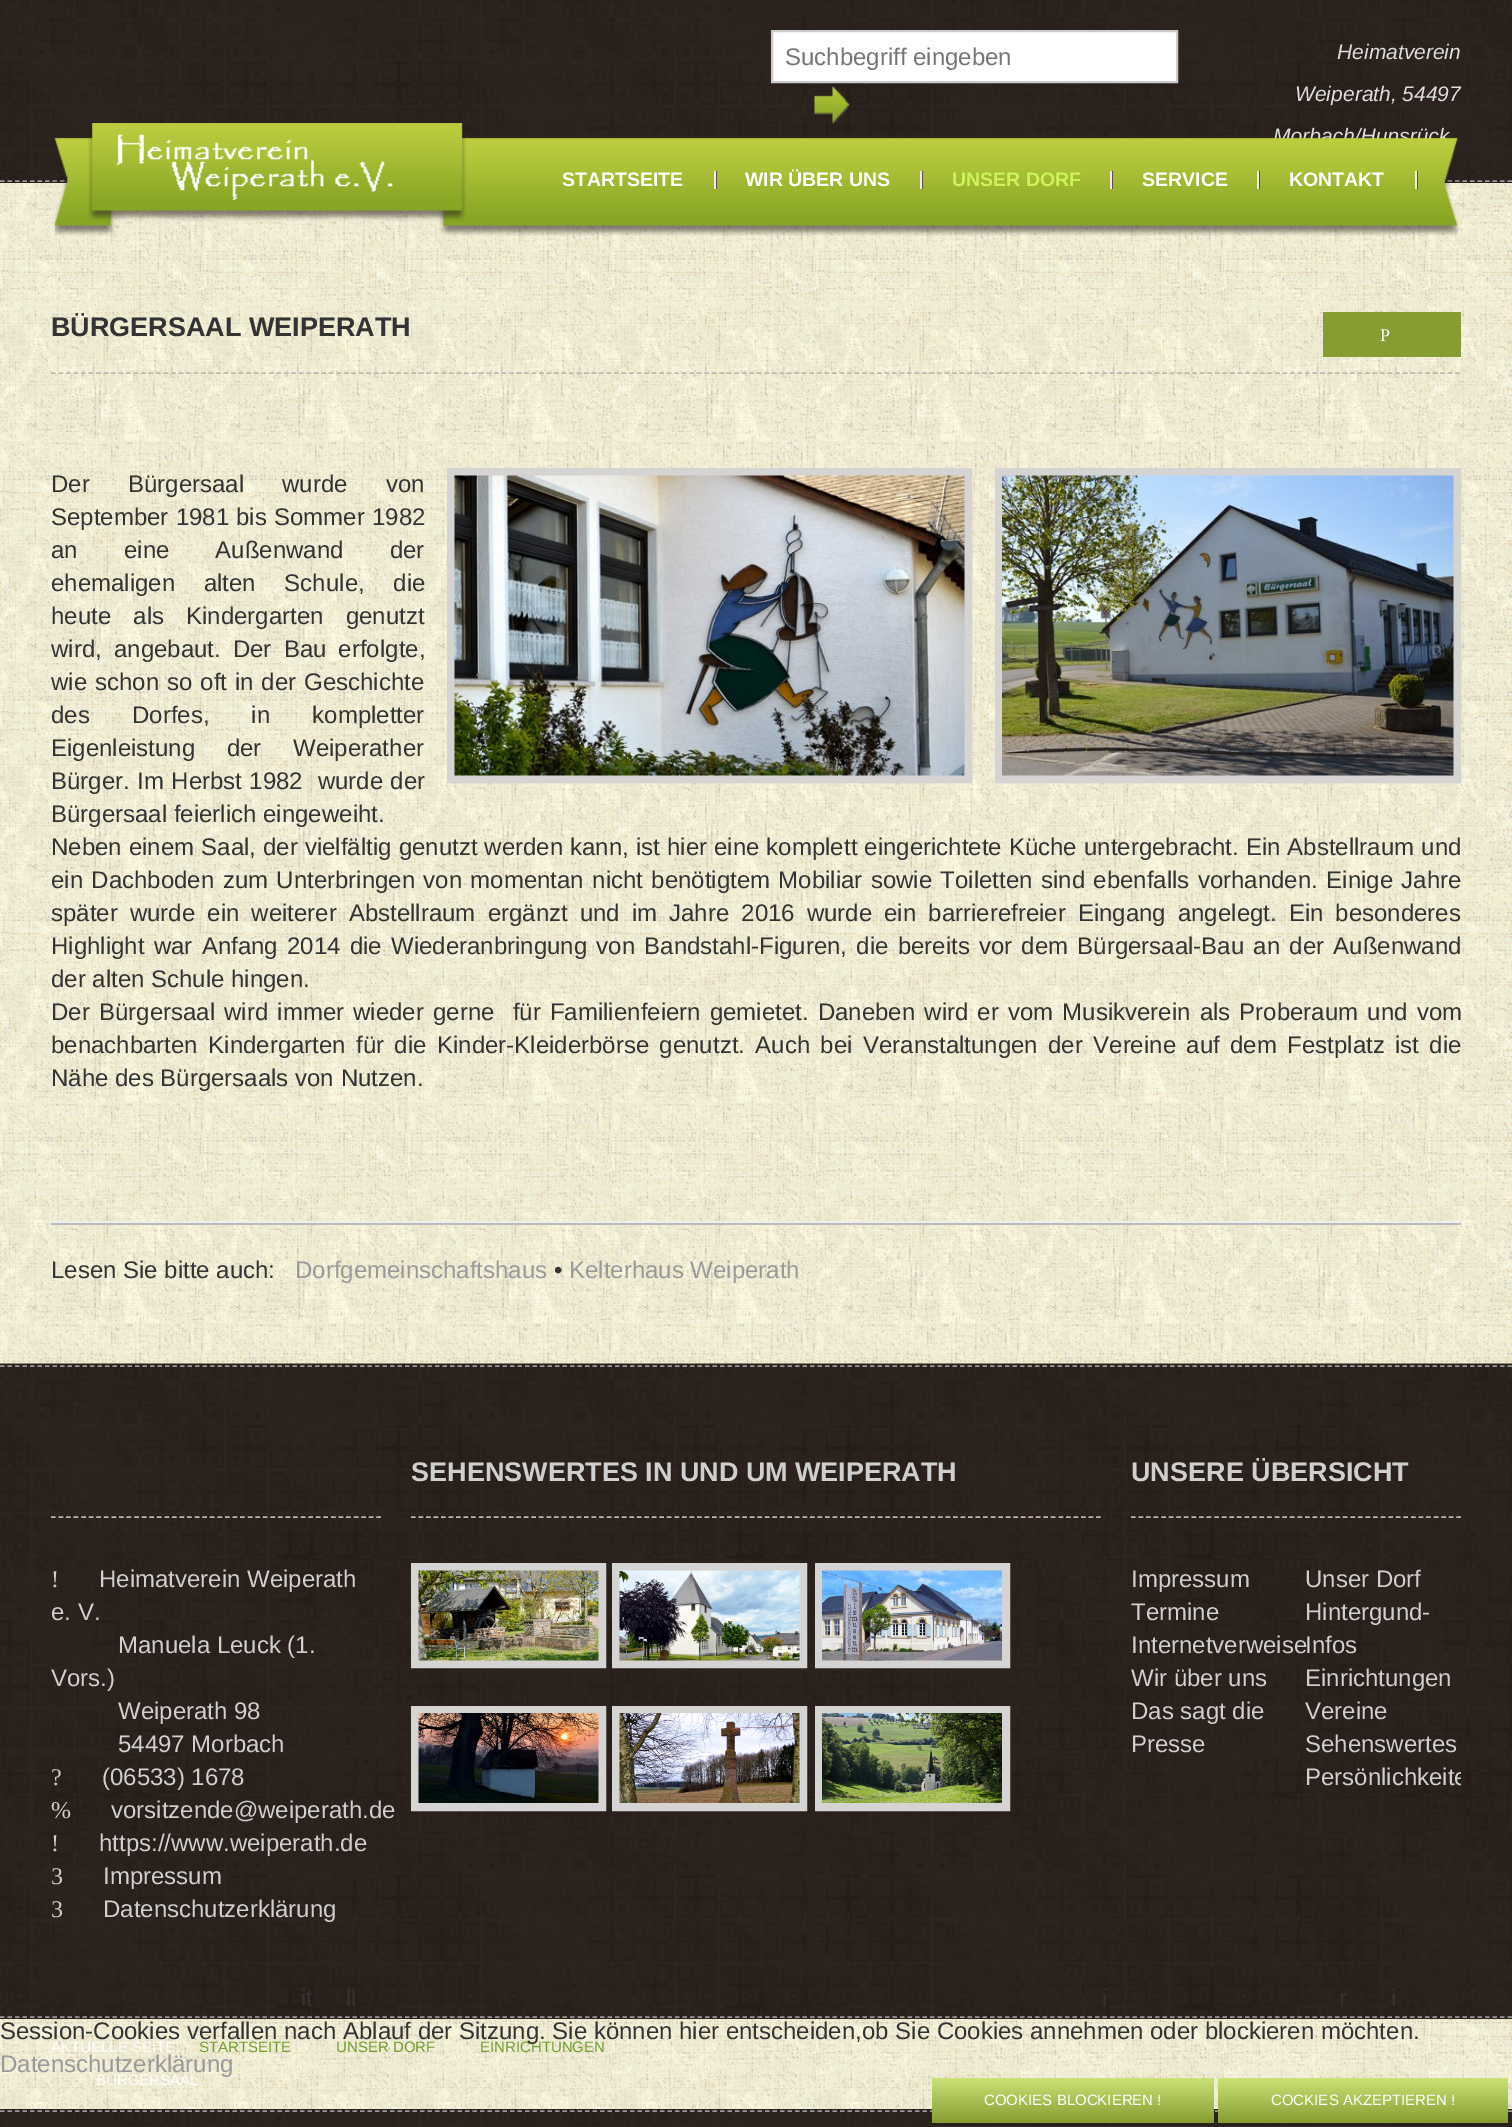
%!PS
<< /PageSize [1512 2127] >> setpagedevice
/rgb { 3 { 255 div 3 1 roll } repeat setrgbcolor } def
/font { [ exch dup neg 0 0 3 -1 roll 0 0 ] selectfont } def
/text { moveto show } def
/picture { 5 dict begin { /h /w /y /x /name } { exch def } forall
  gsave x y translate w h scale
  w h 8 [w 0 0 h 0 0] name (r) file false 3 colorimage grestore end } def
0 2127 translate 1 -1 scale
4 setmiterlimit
255 255 255 rgb
0 0 1512 2127 rectfill
(img_01.rgb) 0 183 1512 1926 picture
(img_02.rgb) 0 0 1512 183 picture
153 153 153 rgb
1.5 setlinewidth
[4.5 3] 0 setdash
0 181 moveto 1512 0 rlineto stroke
255 255 255 rgb
772 31 moveto 405 0 rlineto 0 51 rlineto -405 0 rlineto closepath gsave fill grestore
203 203 203 rgb
2 setlinewidth
[] 0 setdash
stroke
(img_03.rgb) 814 86 36 38 picture
(img_04.rgb) 54 123 1405 113 picture
(img_05.rgb) 116 134 277 66 picture
97 75 66 rgb
716 171 1 18 rectfill
238 238 238 rgb
714 171 2 18 rectfill
97 75 66 rgb
922 171 1 18 rectfill
238 238 238 rgb
920 171 2 18 rectfill
97 75 66 rgb
1112 171 1 18 rectfill
238 238 238 rgb
1110 171 2 18 rectfill
97 75 66 rgb
1259 171 1 18 rectfill
238 238 238 rgb
1257 171 2 18 rectfill
97 75 66 rgb
1417 171 1 18 rectfill
238 238 238 rgb
1415 171 2 18 rectfill
194 181 175 rgb
1.5 setlinewidth
[4.5 3.01] 0 setdash
51 373 moveto 1410 0 rlineto stroke
134 158 49 rgb
1323 312 138 45 rectfill
214 211 211 rgb
8 setlinewidth
[] 0 setdash
451 472 517 307 rectstroke
(img_06.rgb) 454 475 511 301 picture
999 472 458 307 rectstroke
(img_07.rgb) 1002 475 452 301 picture
238 238 238 rgb
51 1221 1410 2 rectfill
187 187 187 rgb
51 1223 1410 2 rectfill
(img_08.rgb) 0 1363 1512 656 picture
153 153 153 rgb
1.5 setlinewidth
[4.5 3] 0 setdash
0 1366 moveto 1512 0 rlineto stroke
0 2017 moveto 1512 0 rlineto stroke
194 181 175 rgb
[4.5 3.03] 0 setdash
411 1517 moveto 690 0 rlineto stroke
214 211 211 rgb
8 setlinewidth
[] 0 setdash
415 1567 187 97 rectstroke
616 1567 187 97 rectstroke
819 1567 187 97 rectstroke
(img_09.rgb) 418 1570 181 91 picture
(img_10.rgb) 619 1570 181 91 picture
(img_11.rgb) 822 1570 180 91 picture
415 1710 187 97 rectstroke
616 1710 187 97 rectstroke
819 1710 187 97 rectstroke
(img_12.rgb) 418 1713 181 90 picture
(img_13.rgb) 619 1713 181 90 picture
(img_14.rgb) 822 1713 180 90 picture
194 181 175 rgb
1.5 setlinewidth
[4.5 3.07] 0 setdash
1131 1517 moveto 330 0 rlineto stroke
51 1517 moveto 330 0 rlineto stroke
(img_15.rgb) 0 2109 1512 18 picture
153 153 153 rgb
[4.5 3] 0 setdash
0 2111 moveto 1512 0 rlineto stroke
gsave 932 2078 moveto 282 0 rlineto 0 45 rlineto -282 0 rlineto closepath clip newpath
<< /ShadingType 2 /ColorSpace /DeviceRGB /Coords [1073 2078 1073 2123] /Extend [true true] /Function << /FunctionType 2 /Domain [0 1] /C0 [0.796 0.89 0.463] /C1 [0.525 0.62 0.192] /N 1 >> >> shfill grestore
gsave 1218 2078 moveto 290 0 rlineto 0 45 rlineto -290 0 rlineto closepath clip newpath
<< /ShadingType 2 /ColorSpace /DeviceRGB /Coords [1363 2078 1363 2123] /Extend [true true] /Function << /FunctionType 2 /Domain [0 1] /C0 [0.796 0.89 0.463] /C1 [0.525 0.62 0.192] /N 1 >> >> shfill grestore
/LiberationSans-Regular 24 font
117 117 117 rgb
(Suchbegriff eingeben) 785 65 text
/LiberationSans-Italic 21 font
221 221 221 rgb
(Heimatverein) 1337 59 text
(Weiperath, 54497) 1295 101 text
/LiberationSans-Bold 19.5 font
255 255 255 rgb
(STARTSEITE) 562 186 text
(WIR ÜBER UNS) 745 186 text
206 243 90 rgb
(UNSER DORF) 952 186 text
255 255 255 rgb
(SERVICE) 1142 186 text
(KONTAKT) 1289 186 text
/LiberationSans-Bold 27 font
51 51 51 rgb
(BÜRGERSAAL WEIPERATH) 51 336 text
/LiberationSerif-Regular 18 font
255 255 255 rgb
(P) 1380 341 text
/LiberationSans-Regular 24 font
51 51 51 rgb
51 492 moveto 31.5 0 32 (Der Bürgersaal wurde von) widthshow
51 525 moveto 0.5 0 32 (September 1981 bis Sommer 1982) widthshow
51 558 moveto 39.5 0 32 (an eine Außenwand der) widthshow
51 591 moveto 22 0 32 (ehemaligen alten Schule, die) widthshow
51 624 moveto 15.5 0 32 (heute als Kindergarten genutzt) widthshow
51 657 moveto 5.5 0 32 (wird, angebaut. Der Bau erfolgte,) widthshow
51 690 moveto 1.25 0 32 (wie schon so oft in der Geschichte) widthshow
51 723 moveto 35.5 0 32 (des Dorfes, in kompletter) widthshow
51 756 moveto 25 0 32 (Eigenleistung der Weiperather) widthshow
51 789 moveto 0.75 0 32 (Bürger. Im Herbst 1982  wurde der) widthshow
(Bürgersaal feierlich eingeweiht.) 51 822 text
51 855 moveto 0.4 0 32 (Neben einem Saal, der vielfältig genutzt werden kann, ist hier eine komplett eingerichtete Küche untergebracht. Ein Abstellraum und) widthshow
51 888 moveto 1.7 0 32 (ein Dachboden zum Unterbringen von momentan nicht benötigtem Mobiliar sowie Toiletten sind ebenfalls vorhanden. Einige Jahre) widthshow
51 921 moveto 5.4 0 32 (später wurde ein weiterer Abstellraum ergänzt und im Jahre 2016 wurde ein barrierefreier Eingang angelegt. Ein besonderes) widthshow
51 954 moveto 2.6 0 32 (Highlight war Anfang 2014 die Wiederanbringung von Bandstahl-Figuren, die bereits vor dem Bürgersaal-Bau an der Außenwand) widthshow
(der alten Schule hingen.) 51 987 text
51 1020 moveto 2.5 0 32 (Der Bürgersaal wird immer wieder gerne  für Familienfeiern gemietet. Daneben wird er vom Musikverein als Proberaum und vom) widthshow
51 1053 moveto 3.75 0 32 (benachbarten Kindergarten für die Kinder-Kleiderbörse genutzt. Auch bei Veranstaltungen der Vereine auf dem Festplatz ist die) widthshow
(Nähe des Bürgersaals von Nutzen.) 51 1086 text
(Lesen Sie bitte auch:) 51 1278 text
153 153 153 rgb
(Dorfgemeinschaftshaus) 295 1278 text
51 51 51 rgb
(•) 554 1278 text
153 153 153 rgb
(Kelterhaus Weiperath) 569 1278 text
/LiberationSans-Bold 27 font
207 207 207 rgb
(SEHENSWERTES IN UND UM WEIPERATH) 411 1481 text
(UNSERE ÜBERSICHT) 1131 1481 text
/LiberationSans-Regular 24 font
(Impressum) 1131 1587 text
(Termine) 1131 1620 text
(Internetverweise) 1131 1653 text
(Wir über uns) 1131 1686 text
(Das sagt die) 1131 1719 text
(Presse) 1131 1752 text
(Unser Dorf) 1305 1587 text
(Hintergund-) 1305 1620 text
(Infos) 1305 1653 text
(Einrichtungen) 1305 1686 text
(Vereine) 1305 1719 text
(Sehenswertes) 1305 1752 text
gsave
51 1457 1410 469 rectclip
(Persönlichkeite) 1305 1785 text
grestore
/LiberationSerif-Regular 24 font
(!) 51 1587 text
/LiberationSans-Regular 24 font
(Heimatverein Weiperath) 99 1587 text
(e. V.) 51 1620 text
(Manuela Leuck \(1.) 118 1653 text
(Vors.\)) 51 1686 text
(Weiperath 98) 118 1719 text
(54497 Morbach) 118 1752 text
/LiberationSerif-Regular 24 font
(?) 51 1785 text
/LiberationSans-Regular 24 font
(\(06533\) 1678) 102 1785 text
/LiberationSerif-Regular 24 font
(%) 51 1818 text
/LiberationSans-Regular 24 font
(vorsitzende@weiperath.de) 111 1818 text
/LiberationSerif-Regular 24 font
(!) 51 1851 text
/LiberationSans-Regular 24 font
(https://www.weiperath.de) 99 1851 text
/LiberationSerif-Regular 24 font
(3) 51 1884 text
/LiberationSans-Regular 24 font
(Impressum) 103 1884 text
/LiberationSerif-Regular 24 font
(3) 51 1917 text
/LiberationSans-Regular 24 font
(Datenschutzerklärung) 103 1917 text
/LiberationSans-Regular 15 font
255 255 255 rgb
(AKTUELLE SEITE:) 51 2052 text
111 158 46 rgb
(STARTSEITE) 199 2052 text
(UNSER DORF) 336 2052 text
(EINRICHTUNGEN) 480 2052 text
255 255 255 rgb
(BÜRGERSAAL) 96 2085 text
/LiberationSans-Regular 24 font
51 51 51 rgb
(it) 301 2006 text
(ll) 346 2006 text
(i) 1102 2006 text
(r) 1339 2006 text
(i) 1391 2006 text
(Session-Cookies verfallen nach Ablauf der Sitzung. Sie können hier entscheiden,ob Sie Cookies annehmen oder blockieren möchten.) 0 2039 text
153 153 153 rgb
(Datenschutzerklärung) 0 2072 text
/LiberationSans-Regular 15 font
255 255 255 rgb
(COOKIES BLOCKIEREN !) 984 2105 text
(COCKIES AKZEPTIEREN !) 1271 2105 text
showpage
